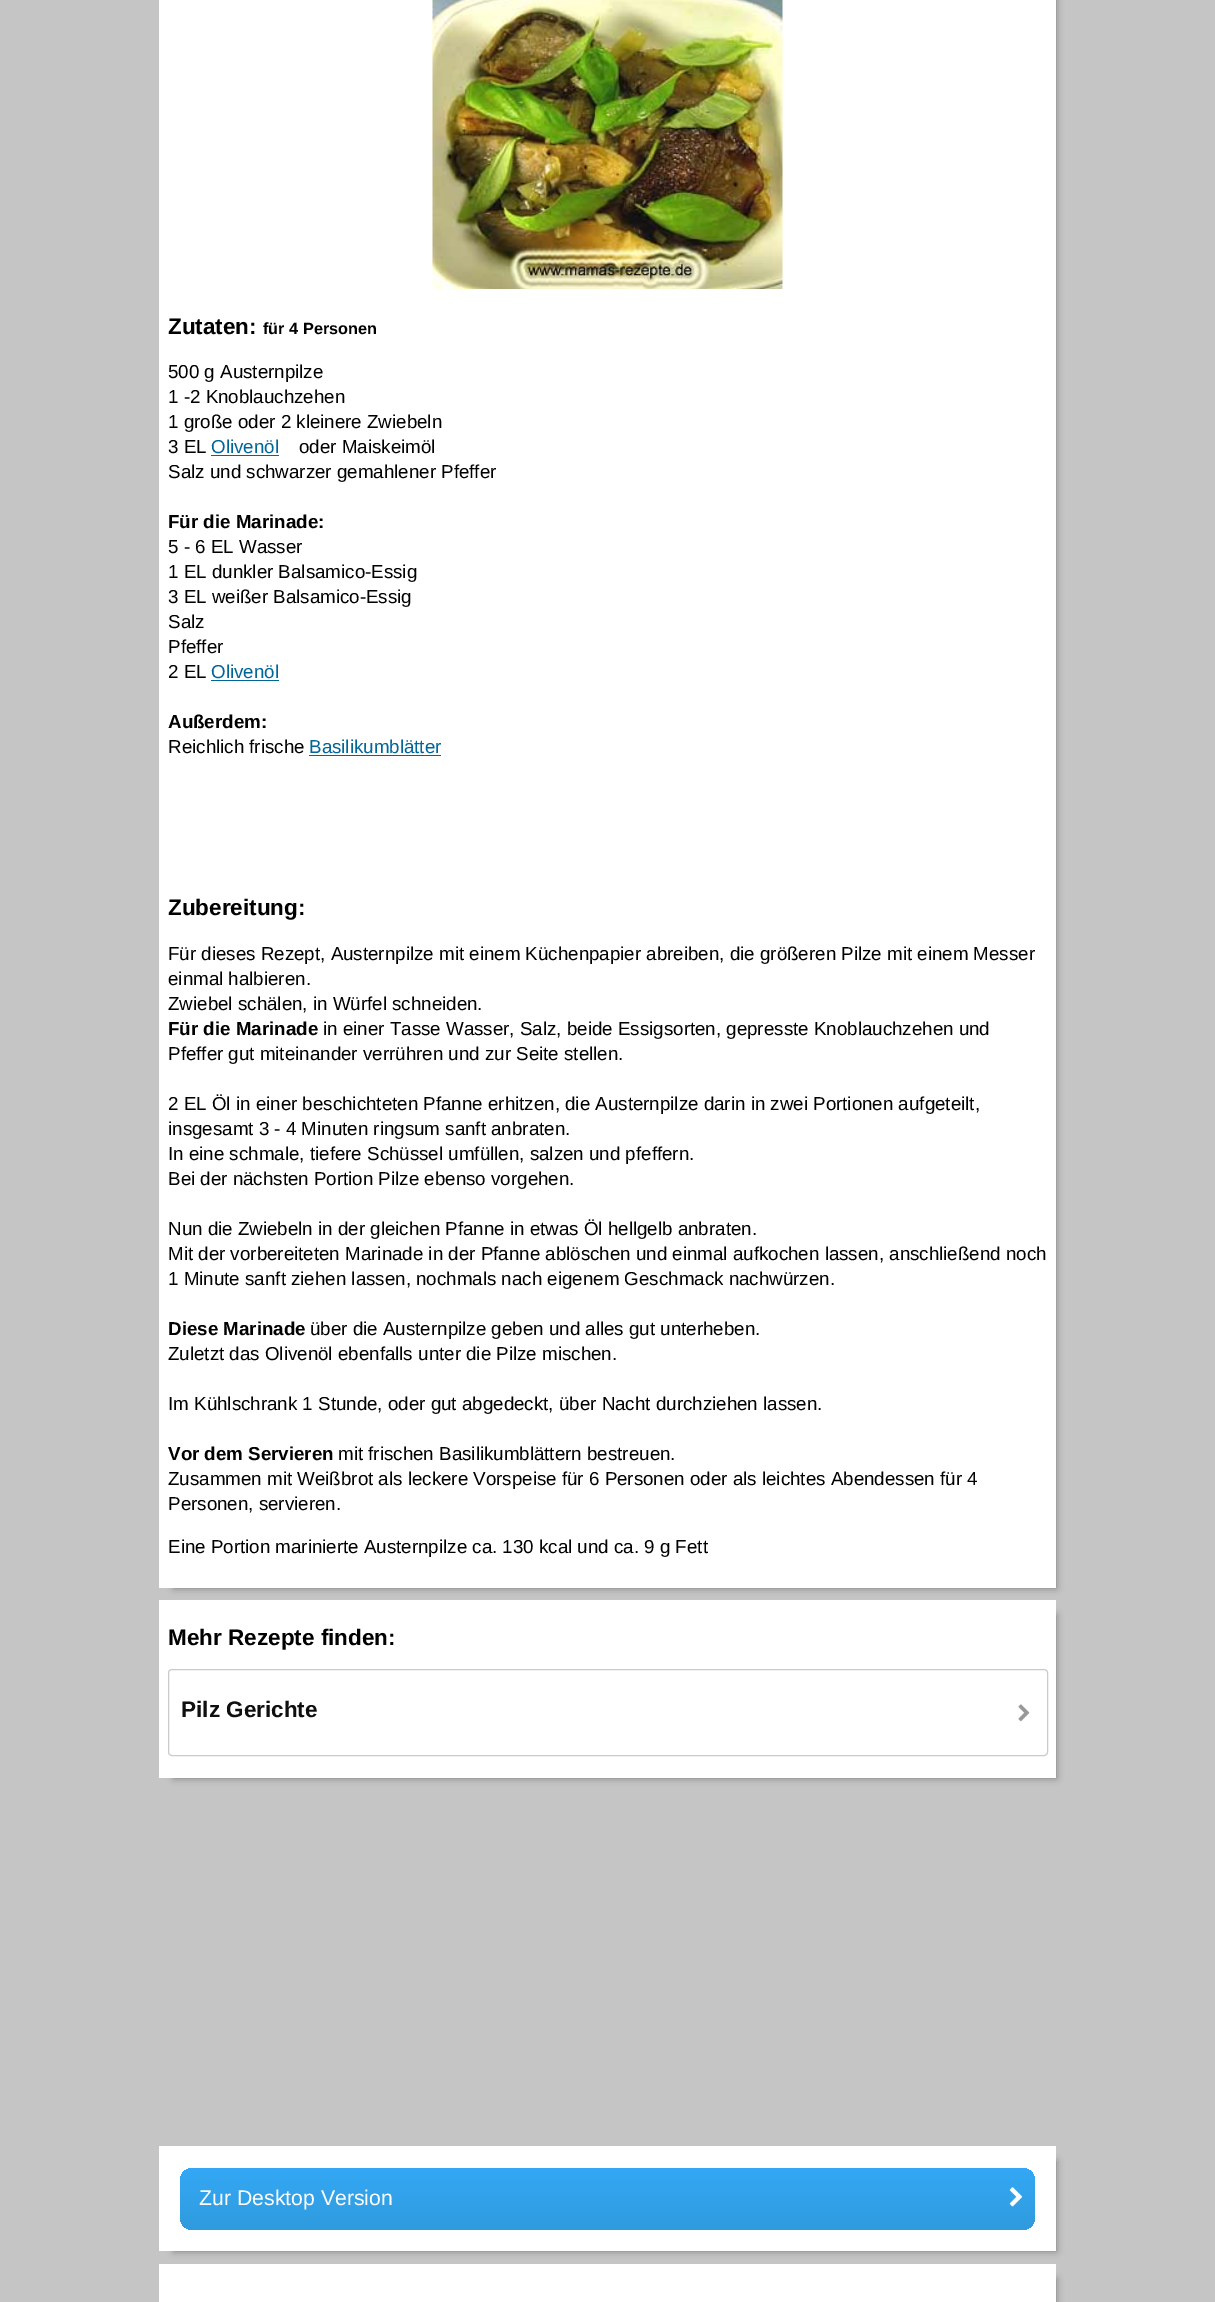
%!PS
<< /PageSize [1215 2302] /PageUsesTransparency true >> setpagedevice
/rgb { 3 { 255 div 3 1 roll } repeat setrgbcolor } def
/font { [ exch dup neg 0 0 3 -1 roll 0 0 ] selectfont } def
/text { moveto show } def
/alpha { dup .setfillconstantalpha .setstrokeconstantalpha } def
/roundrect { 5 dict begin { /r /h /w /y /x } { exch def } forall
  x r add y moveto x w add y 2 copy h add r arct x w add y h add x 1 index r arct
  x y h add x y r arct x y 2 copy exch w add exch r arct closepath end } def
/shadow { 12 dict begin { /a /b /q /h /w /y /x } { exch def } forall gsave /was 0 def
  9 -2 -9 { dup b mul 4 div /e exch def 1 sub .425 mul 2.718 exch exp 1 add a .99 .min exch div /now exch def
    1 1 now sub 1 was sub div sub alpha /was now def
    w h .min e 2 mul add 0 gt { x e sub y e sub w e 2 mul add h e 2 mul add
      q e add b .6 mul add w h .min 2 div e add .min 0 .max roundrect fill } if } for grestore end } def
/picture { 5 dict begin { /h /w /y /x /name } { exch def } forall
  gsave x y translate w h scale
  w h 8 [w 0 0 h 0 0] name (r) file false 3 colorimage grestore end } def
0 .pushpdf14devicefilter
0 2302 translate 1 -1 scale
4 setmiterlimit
197 197 197 rgb
0 0 1215 2302 rectfill
119 119 119 rgb
174 -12 882 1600 0 4 1 shadow
255 255 255 rgb
159 0 897 1588 rectfill
(img_01.rgb) 432 0 351 289 picture
0 102 153 rgb
211 455 68 1 rectfill
211 680 68 1 rectfill
309 755 132 1 rectfill
119 119 119 rgb
174 1615 882 163 0 4 1 shadow
255 255 255 rgb
159 1600 897 178 rectfill
203 203 203 rgb
168.5 1669.5 879 86 3.5 roundrect stroke
(img_02.rgb) 1018 1704 12 18 picture
119 119 119 rgb
174 2161 882 90 0 4 1 shadow
255 255 255 rgb
159 2146 897 105 rectfill
gsave 180 2168 855 62 13 roundrect clip newpath
<< /ShadingType 2 /ColorSpace /DeviceRGB /Coords [608 2168 608 2230] /Extend [true true] /Function << /FunctionType 2 /Domain [0 1] /C0 [0.204 0.659 0.961] /C1 [0.184 0.608 0.871] /N 1 >> >> shfill grestore
(img_03.rgb) 1009 2187 14 20 picture
119 119 119 rgb
174 2279 882 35 0 4 1 shadow
255 255 255 rgb
159 2264 897 38 rectfill
/LiberationSans-Bold 22.5 font
0 0 0 rgb
(Zutaten:) 168 334 text
/LiberationSans-Bold 16.25 font
(für 4 Personen) 263 334 text
/LiberationSans-Regular 18.75 font
(500 g Austernpilze) 168 378 text
(1 -2 Knoblauchzehen) 168 403 text
(1 große oder 2 kleinere Zwiebeln) 168 428 text
(3 EL) 168 453 text
0 102 153 rgb
(Olivenöl) 211 453 text
0 0 0 rgb
(oder Maiskeimöl) 299 453 text
(Salz und schwarzer gemahlener Pfeffer) 168 478 text
/LiberationSans-Bold 18.75 font
(Für die Marinade:) 168 528 text
/LiberationSans-Regular 18.75 font
(5 - 6 EL Wasser) 168 553 text
(1 EL dunkler Balsamico-Essig) 168 578 text
(3 EL weißer Balsamico-Essig) 168 603 text
(Salz) 168 628 text
(Pfeffer) 168 653 text
(2 EL) 168 678 text
0 102 153 rgb
(Olivenöl) 211 678 text
/LiberationSans-Bold 18.75 font
0 0 0 rgb
(Außerdem:) 168 728 text
/LiberationSans-Regular 18.75 font
(Reichlich frische) 168 753 text
0 102 153 rgb
(Basilikumblätter) 309 753 text
/LiberationSans-Bold 22.5 font
0 0 0 rgb
(Zubereitung:) 168 915 text
/LiberationSans-Regular 18.75 font
(Für dieses Rezept, Austernpilze mit einem Küchenpapier abreiben, die größeren Pilze mit einem Messer) 168 960 text
(einmal halbieren.) 168 985 text
(Zwiebel schälen, in Würfel schneiden.) 168 1010 text
/LiberationSans-Bold 18.75 font
(Für die Marinade) 168 1035 text
/LiberationSans-Regular 18.75 font
(in einer Tasse Wasser, Salz, beide Essigsorten, gepresste Knoblauchzehen und) 323 1035 text
(Pfeffer gut miteinander verrühren und zur Seite stellen.) 168 1060 text
(2 EL Öl in einer beschichteten Pfanne erhitzen, die Austernpilze darin in zwei Portionen aufgeteilt,) 168 1110 text
(insgesamt 3 - 4 Minuten ringsum sanft anbraten.) 168 1135 text
(In eine schmale, tiefere Schüssel umfüllen, salzen und pfeffern.) 168 1160 text
(Bei der nächsten Portion Pilze ebenso vorgehen.) 168 1185 text
(Nun die Zwiebeln in der gleichen Pfanne in etwas Öl hellgelb anbraten.) 168 1235 text
(Mit der vorbereiteten Marinade in der Pfanne ablöschen und einmal aufkochen lassen, anschließend noch) 168 1260 text
(1 Minute sanft ziehen lassen, nochmals nach eigenem Geschmack nachwürzen.) 168 1285 text
/LiberationSans-Bold 18.75 font
(Diese Marinade) 168 1335 text
/LiberationSans-Regular 18.75 font
(über die Austernpilze geben und alles gut unterheben.) 310 1335 text
(Zuletzt das Olivenöl ebenfalls unter die Pilze mischen.) 168 1360 text
(Im Kühlschrank 1 Stunde, oder gut abgedeckt, über Nacht durchziehen lassen.) 168 1410 text
/LiberationSans-Bold 18.75 font
(Vor dem Servieren) 168 1460 text
/LiberationSans-Regular 18.75 font
(mit frischen Basilikumblättern bestreuen.) 338 1460 text
(Zusammen mit Weißbrot als leckere Vorspeise für 6 Personen oder als leichtes Abendessen für 4) 168 1485 text
(Personen, servieren.) 168 1510 text
(Eine Portion marinierte Austernpilze ca. 130 kcal und ca. 9 g Fett) 168 1553 text
/LiberationSans-Bold 22.5 font
(Mehr Rezepte finden:) 168 1645 text
15 15 15 rgb
(Pilz Gerichte) 181 1717 text
/LiberationSans-Regular 21.25 font
255 255 255 rgb
(Zur Desktop Version) 199 2205 text
.poppdf14devicefilter showpage
